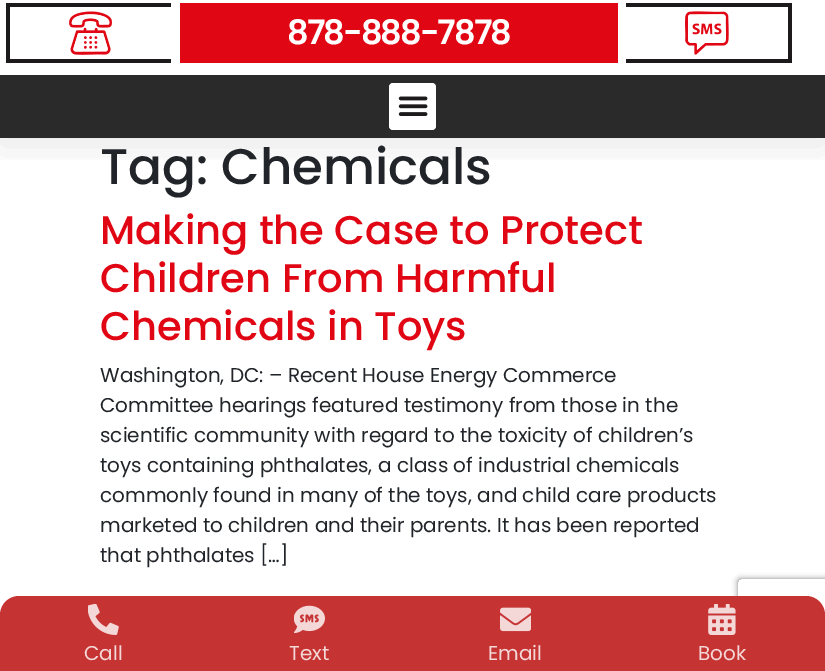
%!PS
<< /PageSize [825 671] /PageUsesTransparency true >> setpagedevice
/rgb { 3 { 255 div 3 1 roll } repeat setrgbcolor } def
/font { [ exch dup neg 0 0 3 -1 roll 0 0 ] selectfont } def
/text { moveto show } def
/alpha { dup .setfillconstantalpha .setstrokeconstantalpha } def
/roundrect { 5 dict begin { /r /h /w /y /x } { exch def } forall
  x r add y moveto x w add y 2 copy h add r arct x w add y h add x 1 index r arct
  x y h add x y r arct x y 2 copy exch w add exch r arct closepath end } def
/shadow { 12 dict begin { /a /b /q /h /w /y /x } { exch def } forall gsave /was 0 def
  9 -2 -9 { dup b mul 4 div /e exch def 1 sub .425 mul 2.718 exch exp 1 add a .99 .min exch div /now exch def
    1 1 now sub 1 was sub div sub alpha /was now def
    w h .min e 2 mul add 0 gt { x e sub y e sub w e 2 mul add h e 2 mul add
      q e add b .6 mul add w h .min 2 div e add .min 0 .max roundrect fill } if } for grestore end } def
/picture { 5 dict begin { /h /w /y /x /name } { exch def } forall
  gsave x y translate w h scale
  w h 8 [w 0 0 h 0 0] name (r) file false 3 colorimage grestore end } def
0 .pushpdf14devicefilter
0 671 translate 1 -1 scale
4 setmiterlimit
255 255 255 rgb
0 0 825 671 rectfill
gsave
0 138 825 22 rectclip
0 0 0 rgb
0 -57 825 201 0 19 0.1 shadow
grestore
28 26 26 rgb
6 3 165 4 rectfill
6 59 165 4 rectfill
6 3 4 60 rectfill
(img_01.rgb) 69 11 43 44 picture
225 6 19 rgb
180 3 438 60 rectfill
28 26 26 rgb
626 3 165 4 rectfill
788 3 4 60 rectfill
626 59 165 4 rectfill
(img_02.rgb) 685 11 44 44 picture
42 42 42 rgb
0 75 825 63 rectfill
255 255 255 rgb
389 83 47 47 4 roundrect fill
(img_03.rgb) 398 96 30 20 picture
198 51 51 rgb
19 596 moveto 187 0 rlineto 0 75 rlineto -206 0 rlineto 0 -56 rlineto 0 -10.5 8.5 -19 19 -19 rcurveto closepath fill
(img_04.rgb) 88 604 31 31 picture
206 596 413 75 rectfill
(img_05.rgb) 294 605 31 28 picture
(img_06.rgb) 500 607 31 25 picture
gsave
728 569 moveto 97 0 rlineto 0 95 rlineto -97 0 rlineto closepath 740.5 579 moveto 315 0 rlineto 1.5 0 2.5 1 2.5 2.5 rcurveto 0 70 rlineto 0 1.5 -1 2.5 -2.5 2.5 rcurveto -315 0 rlineto -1.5 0 -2.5 -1 -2.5 -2.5 rcurveto 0 -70 rlineto 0 -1.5 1 -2.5 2.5 -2.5 rcurveto closepath eoclip newpath
128 128 128 rgb
738 579 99 75 2.5 3 1 shadow
grestore
619 596 moveto 187 0 rlineto 10.5 0 19 8.5 19 19 rcurveto 0 56 rlineto -206 0 rlineto closepath fill
(img_07.rgb) 708 604 28 31 picture
/Poppins-SemiBold 33.75 font
255 255 255 rgb
287 44 moveto -2 0 (878-888-7878) ashow
/Poppins-Medium 50 font
33 37 41 rgb
(Tag: Chemicals) 100 184 text
/Poppins-Medium 40 font
225 6 19 rgb
(Making the Case to Protect) 100 244 text
(Children From Harmful) 100 292 text
(Chemicals in Toys) 100 340 text
/Poppins-Regular 20 font
33 37 41 rgb
(Washington, DC: – Recent House Energy Commerce) 100 382 text
(Committee hearings featured testimony from those in the) 100 412 text
(scientific community with regard to the toxicity of children’s) 100 442 text
(toys containing phthalates, a class of industrial chemicals) 100 472 text
(commonly found in many of the toys, and child care products) 100 502 text
(marketed to children and their parents. It has been reported) 100 532 text
(that phthalates […]) 100 562 text
244 215 215 rgb
(Call) 84 660 text
(Text) 289 660 text
(Email) 488 660 text
(Book) 698 660 text
.poppdf14devicefilter showpage
